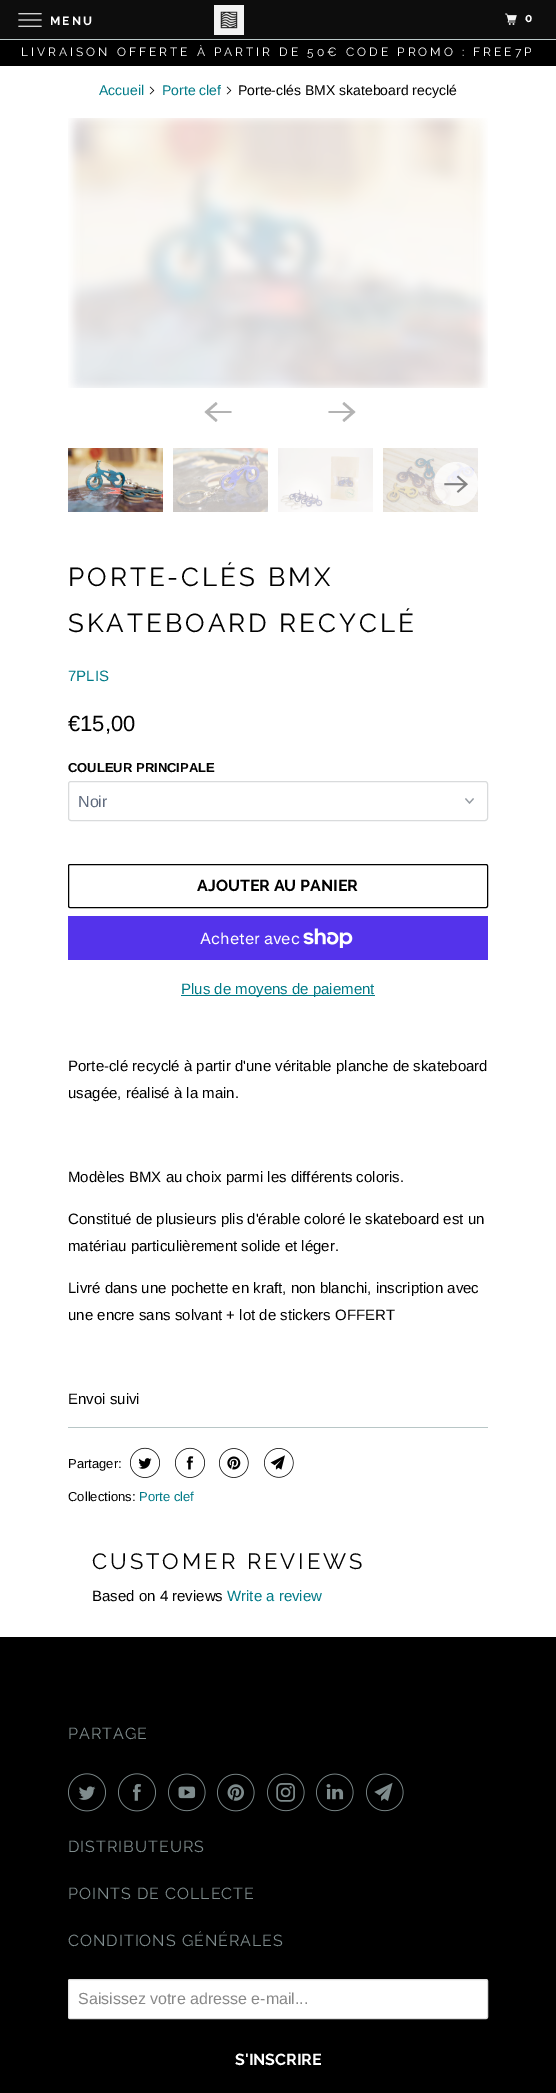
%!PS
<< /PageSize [556 2093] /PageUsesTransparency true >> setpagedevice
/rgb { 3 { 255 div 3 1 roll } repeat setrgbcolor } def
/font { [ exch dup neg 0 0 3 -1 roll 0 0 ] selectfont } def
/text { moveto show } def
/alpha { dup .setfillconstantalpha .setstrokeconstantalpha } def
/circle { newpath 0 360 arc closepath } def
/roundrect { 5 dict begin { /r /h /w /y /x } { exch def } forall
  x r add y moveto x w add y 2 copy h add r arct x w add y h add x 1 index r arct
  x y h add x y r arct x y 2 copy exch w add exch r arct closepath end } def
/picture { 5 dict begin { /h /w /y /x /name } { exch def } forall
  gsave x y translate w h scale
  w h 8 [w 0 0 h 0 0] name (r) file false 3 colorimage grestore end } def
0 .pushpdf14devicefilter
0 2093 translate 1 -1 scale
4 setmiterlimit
0 0 0 rgb
0 0 556 2093 rectfill
13 13 13 rgb
0 0 556 39 rectfill
188 201 201 rgb
0 39 556 1 rectfill
(img_01.rgb) 18 13 24 14 picture
(img_02.rgb) 214 5 30 30 picture
(img_03.rgb) 505 13 12 12 picture
255 255 255 rgb
0 66 556 1571 rectfill
(img_04.rgb) 149 86 6 9 picture
(img_04.rgb) 226 86 6 9 picture
(img_05.rgb) 68 118 420 270 picture
179 179 179 rgb
231.5 411 moveto -22 0 rlineto 8 -7 rlineto -1.5 -2 rlineto -11.5 10 rlineto 11.5 10 rlineto 1.5 -2 rlineto -8 -7 rlineto 22 0 rlineto closepath fill
328.5 413 moveto 22 0 rlineto -8 7 rlineto 1.5 2 rlineto 11.5 -10 rlineto -11.5 -10 rlineto -1.5 2 rlineto 8 7 rlineto -22 0 rlineto closepath fill
(img_06.rgb) 68 448 95 64 picture
(img_07.rgb) 173 448 95 64 picture
(img_08.rgb) 278 448 95 64 picture
(img_09.rgb) 383 448 95 64 picture
0.22 alpha
255 255 255 rgb
100 484 22 circle fill
1 alpha
(img_10.rgb) 88 475 24 18 picture
0.75 alpha
456 484 22 circle fill
1 alpha
(img_11.rgb) 444 475 24 18 picture
(img_12.rgb) 465 798 9 6 picture
217 219 220 rgb
68.5 781.5 419 39 2.5 roundrect stroke
0 0 0 rgb
68.5 864.5 419 43 1.5 roundrect stroke
84 51 235 rgb
68 916 420 44 rectfill
(img_13.rgb) 303 928 50 20 picture
0 122 135 rgb
181 995 194 1 rectfill
184 198 198 rgb
68 1427 420 1 rectfill
(img_14.rgb) 130 1447 30 31 picture
(img_15.rgb) 175 1447 30 31 picture
(img_16.rgb) 219 1448 30 30 picture
(img_17.rgb) 264 1448 30 30 picture
(img_18.rgb) 68 1773 38 39 picture
(img_19.rgb) 118 1773 38 39 picture
(img_20.rgb) 168 1773 38 39 picture
(img_21.rgb) 217 1773 38 39 picture
(img_22.rgb) 267 1773 38 39 picture
(img_23.rgb) 316 1773 38 39 picture
(img_24.rgb) 366 1773 38 39 picture
255 255 255 rgb
68.5 1979.5 419 39 1.5 roundrect gsave fill grestore
223 223 223 rgb
stroke
/Raleway-Bold 12 font
255 255 255 rgb
50 25 moveto 2 0 (MENU) ashow
525 22 moveto 2 0 (0) ashow
/Raleway-Regular 12 font
21 56 moveto 3 0 (LIVRAISON OFFERTE À PARTIR DE 50€ CODE PROMO : FREE7P) ashow
/LiberationSans-Regular 14 font
0 122 135 rgb
(Accueil) 99 95 text
(Porte clef) 162 95 text
0 0 0 rgb
(Porte-clés BMX skateboard recyclé) 238 95 text
/Raleway-Regular 26 font
68 586 moveto 3 0 (PORTE-CLÉS BMX) ashow
68 632 moveto 3 0 (SKATEBOARD RECYCLÉ) ashow
/LiberationSans-Regular 15 font
0 122 135 rgb
(7PLIS) 68 681 text
/LiberationSans-Regular 22 font
0 0 0 rgb
(€15,00) 68 731 text
/LiberationSans-Bold 13 font
(COULEUR PRINCIPALE) 68 772 text
/LiberationSans-Regular 16 font
95 106 125 rgb
(Noir) 78 807 text
/Raleway-Bold 16 font
0 0 0 rgb
(AJOUTER AU PANIER) 197 891 text
/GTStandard-Regular 16 font
255 255 255 rgb
(Acheter avec) 200 944 text
/LiberationSans-Regular 15 font
0 122 135 rgb
(Plus de moyens de paiement) 181 994 text
0 0 0 rgb
(Porte-clé recyclé à partir d'une véritable planche de skateboard) 68 1071 text
(usagée, réalisé à la main.) 68 1098 text
(Modèles BMX au choix parmi les différents coloris.) 68 1182 text
(Constitué de plusieurs plis d'érable coloré le skateboard est un) 68 1224 text
(matériau particulièrement solide et léger.) 68 1251 text
(Livré dans une pochette en kraft, non blanchi, inscription avec) 68 1293 text
(une encre sans solvant + lot de stickers OFFERT) 68 1320 text
(Envoi suivi) 68 1404 text
/LiberationSans-Regular 13 font
(Partager:) 68 1468 text
(Collections:) 68 1501 text
0 122 135 rgb
(Porte clef) 139 1501 text
/Raleway-Regular 22 font
0 0 0 rgb
92 1569 moveto 3 0 (CUSTOMER REVIEWS) ashow
/LiberationSans-Regular 15 font
(Based on 4 reviews) 92 1601 text
0 122 135 rgb
(Write a review) 227 1601 text
/Raleway-Regular 16 font
127 140 141 rgb
68 1739 moveto 1 0 (PARTAGE) ashow
68 1852 moveto 1 0 (DISTRIBUTEURS) ashow
68 1899 moveto 1 0 (POINTS DE COLLECTE) ashow
68 1946 moveto 1 0 (CONDITIONS GÉNÉRALES) ashow
/LiberationSans-Regular 16 font
136 136 136 rgb
(Saisissez votre adresse e-mail...) 78 2004 text
/Raleway-Bold 16 font
255 255 255 rgb
(S'INSCRIRE) 235 2065 text
.poppdf14devicefilter showpage
